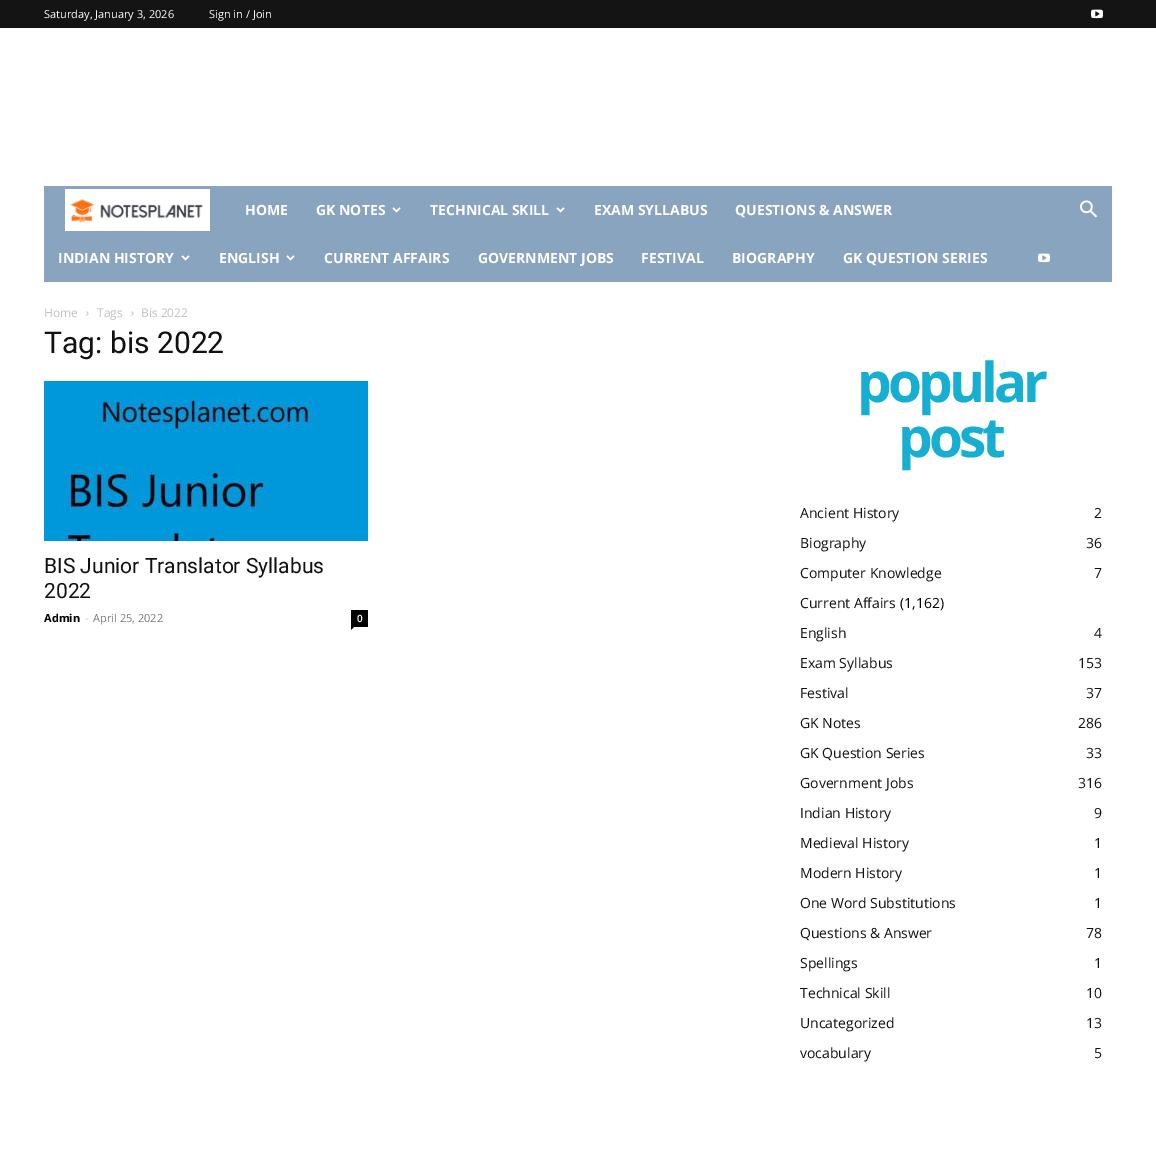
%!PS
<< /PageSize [1156 1173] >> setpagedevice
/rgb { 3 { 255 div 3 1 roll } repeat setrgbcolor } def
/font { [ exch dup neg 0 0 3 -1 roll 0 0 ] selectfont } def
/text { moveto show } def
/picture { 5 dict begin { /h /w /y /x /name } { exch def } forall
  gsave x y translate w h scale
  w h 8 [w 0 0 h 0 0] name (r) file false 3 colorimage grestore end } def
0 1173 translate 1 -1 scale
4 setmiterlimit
255 255 255 rgb
0 0 1156 1173 rectfill
20 20 20 rgb
0 0 1156 28 rectfill
(img_01.rgb) 1091 9 12 10 picture
137 164 191 rgb
44 186 1068 96 rectfill
(img_02.rgb) 65 189 145 42 picture
(img_03.rgb) 392 207 9 6 picture
(img_03.rgb) 556 207 9 6 picture
(img_03.rgb) 181 255 9 6 picture
(img_03.rgb) 286 255 9 6 picture
(img_04.rgb) 1038 253 12 10 picture
(img_05.rgb) 1080 200 17 18 picture
(img_06.rgb) 86 311 3 5 picture
(img_06.rgb) 131 311 3 5 picture
(img_07.rgb) 44 381 324 160 picture
0 0 0 rgb
351 610 17 17 rectfill
351 627 moveto 3 0 rlineto -3 3 rlineto closepath fill
/OpenSans-Regular 11 font
255 255 255 rgb
(Saturday, January 3, 2026) 44 18 text
(Sign in / Join) 209 18 text
/OpenSans-Bold 14 font
(HOME) 245 215 text
(GK NOTES) 316 215 text
(TECHNICAL SKILL) 430 215 text
(EXAM SYLLABUS) 594 215 text
(QUESTIONS & ANSWER) 735 215 text
(INDIAN HISTORY) 58 263 text
(ENGLISH) 219 263 text
(CURRENT AFFAIRS) 324 263 text
(GOVERNMENT JOBS) 478 263 text
(FESTIVAL) 641 263 text
(BIOGRAPHY) 732 263 text
(GK QUESTION SERIES) 843 263 text
/OpenSans-Regular 12 font
195 195 195 rgb
(Home) 44 317 text
(Tags) 97 317 text
(Bis 2022) 141 317 text
/Roboto-Regular 30 font
17 17 17 rgb
(Tag: bis 2022) 44 353 text
/Roboto-Regular 21 font
(BIS Junior Translator Syllabus) 44 573 text
(2022) 44 598 text
/OpenSans-Bold 11 font
0 0 0 rgb
(Admin) 44 622 text
/OpenSans-Regular 11 font
204 204 204 rgb
(-) 85 622 text
118 118 118 rgb
(April 25, 2022) 93 622 text
/OpenSans-SemiBold 10 font
255 255 255 rgb
(0) 357 622 text
/OpenSans-Bold 55 font
22 174 209 rgb
857 402 moveto -4 0 (popular) ashow
898 457 moveto -4 0 (post) ashow
/OpenSans-Regular 14 font
17 17 17 rgb
(Ancient History) 800 518 text
(2) 1094 518 text
(Biography) 800 548 text
(36) 1086 548 text
(Computer Knowledge) 800 578 text
(7) 1094 578 text
(Current Affairs) 800 608 text
0 0 0 rgb
(\(1,162\)) 900 608 text
17 17 17 rgb
(English) 800 638 text
(4) 1094 638 text
(Exam Syllabus) 800 668 text
(153) 1078 668 text
(Festival) 800 698 text
(37) 1086 698 text
(GK Notes) 800 728 text
(286) 1078 728 text
(GK Question Series) 800 758 text
(33) 1086 758 text
(Government Jobs) 800 788 text
(316) 1078 788 text
(Indian History) 800 818 text
(9) 1094 818 text
(Medieval History) 800 848 text
(1) 1094 848 text
(Modern History) 800 878 text
(1) 1094 878 text
(One Word Substitutions) 800 908 text
(1) 1094 908 text
(Questions & Answer) 800 938 text
(78) 1086 938 text
(Spellings) 800 968 text
(1) 1094 968 text
(Technical Skill) 800 998 text
(10) 1086 998 text
(Uncategorized) 800 1028 text
(13) 1086 1028 text
(vocabulary) 800 1058 text
(5) 1094 1058 text
showpage
